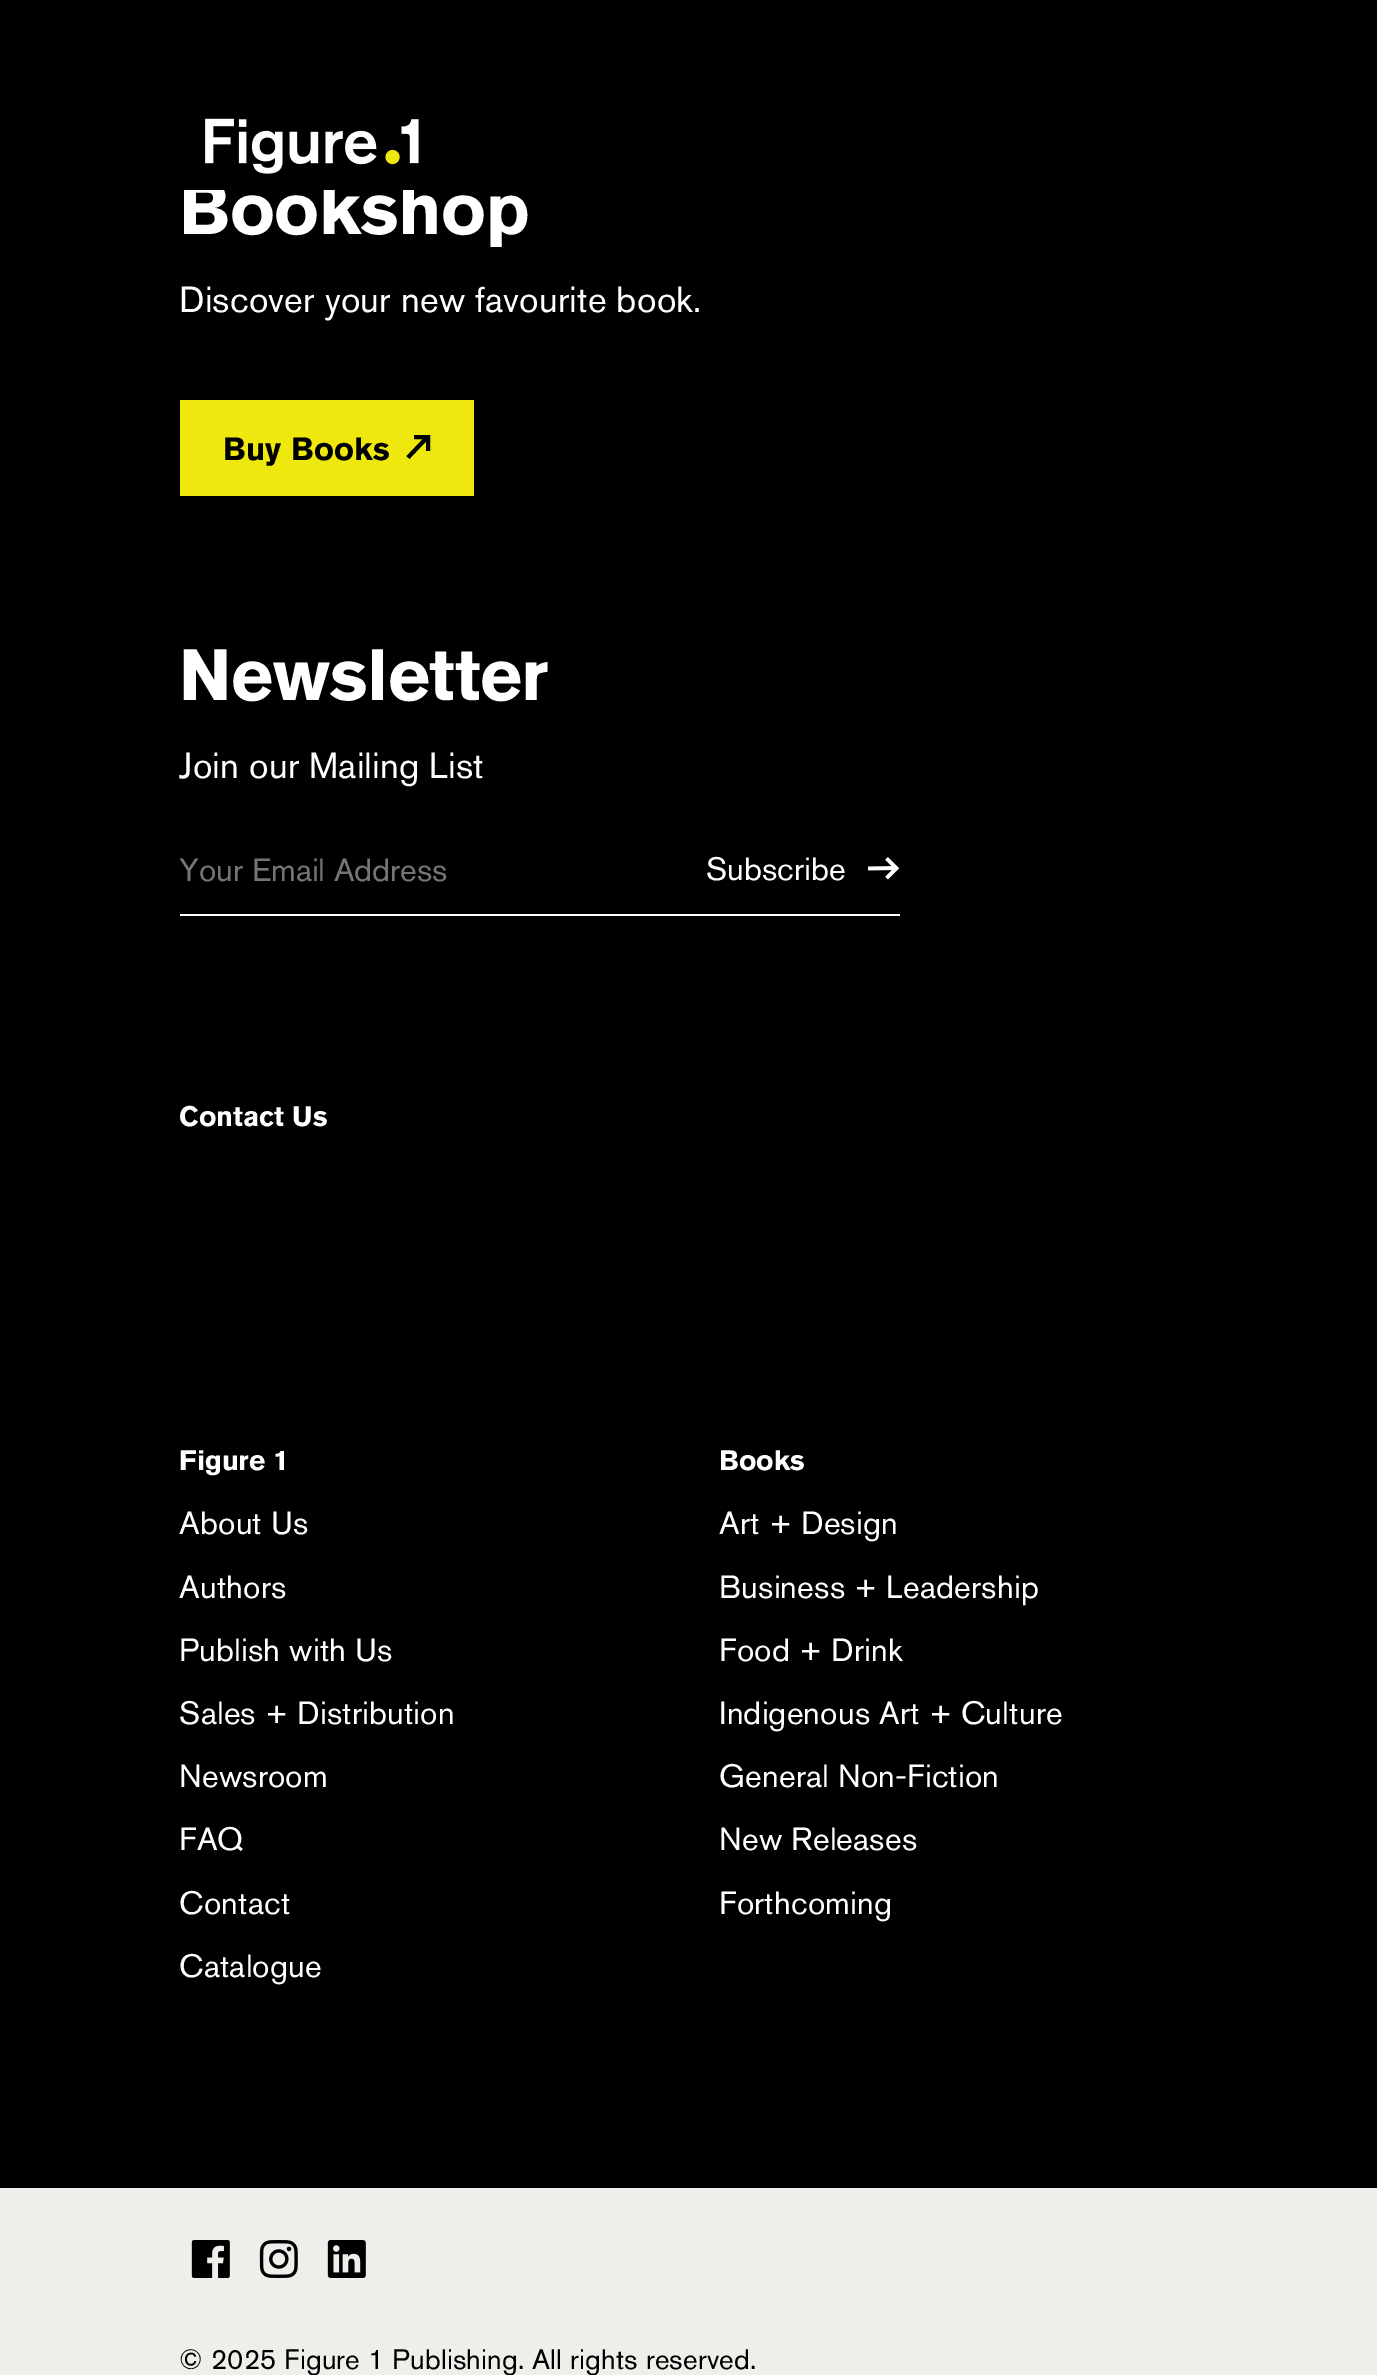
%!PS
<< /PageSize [1377 2375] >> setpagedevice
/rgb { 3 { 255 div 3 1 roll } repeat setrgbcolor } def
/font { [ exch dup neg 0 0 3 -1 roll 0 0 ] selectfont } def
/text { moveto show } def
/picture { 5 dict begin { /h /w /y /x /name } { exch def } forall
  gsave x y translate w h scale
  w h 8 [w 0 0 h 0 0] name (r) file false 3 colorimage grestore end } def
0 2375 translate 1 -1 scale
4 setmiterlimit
0 0 0 rgb
0 0 1377 2375 rectfill
239 232 15 rgb
180 400 294 96 rectfill
0 0 0 rgb
4 setlinewidth
427.5 437 moveto -19.5 20.5 rlineto 414 437 moveto 14 0 rlineto 0 14 rlineto stroke
255 255 255 rgb
180 914 720 2 rectfill
(img_02.rgb) 868 857 32 23 picture
238 238 235 rgb
0 2188 1377 187 rectfill
(img_03.rgb) 191 2240 39 38 picture
(img_04.rgb) 259 2240 39 38 picture
(img_05.rgb) 327 2240 39 38 picture
/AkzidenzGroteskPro-Bold 72 font
255 255 255 rgb
179 234 moveto -0.25 0 (Bookshop) ashow
(img_01.rgb) 184 118 235 72 picture
/AkzidenzGroteskPro-Regular 36 font
179 312 moveto 0.2 0 (Discover your new favourite book.) ashow
/AkzidenzGroteskPro-Bold 32 font
0 0 0 rgb
223 460 moveto 0.2 0 (Buy Books) ashow
/AkzidenzGroteskPro-Bold 72 font
255 255 255 rgb
179 700 moveto -0.25 0 (Newsletter) ashow
/AkzidenzGroteskPro-Regular 36 font
179 778 moveto 0.2 0 (Join our Mailing List) ashow
/AkzidenzGroteskPro-Regular 32 font
117 117 117 rgb
(Your Email Address) 179 881 text
255 255 255 rgb
(Subscribe) 706 880 text
/AkzidenzGroteskPro-Bold 28 font
(Contact Us) 179 1126 text
(Figure 1) 179 1470 text
/AkzidenzGroteskPro-Regular 32 font
179 1534 moveto 0.2 0 (About Us) ashow
179 1598 moveto 0.2 0 (Authors) ashow
179 1661 moveto 0.2 0 (Publish with Us) ashow
179 1724 moveto 0.2 0 (Sales + Distribution) ashow
179 1787 moveto 0.2 0 (Newsroom) ashow
179 1850 moveto 0.2 0 (FAQ) ashow
179 1914 moveto 0.2 0 (Contact) ashow
179 1977 moveto 0.2 0 (Catalogue) ashow
/AkzidenzGroteskPro-Bold 28 font
(Books) 719 1470 text
/AkzidenzGroteskPro-Regular 32 font
719 1534 moveto 0.2 0 (Art + Design) ashow
719 1598 moveto 0.2 0 (Business + Leadership) ashow
719 1661 moveto 0.2 0 (Food + Drink) ashow
719 1724 moveto 0.2 0 (Indigenous Art + Culture) ashow
719 1787 moveto 0.2 0 (General Non-Fiction) ashow
719 1850 moveto 0.2 0 (New Releases) ashow
719 1914 moveto 0.2 0 (Forthcoming) ashow
/AkzidenzGroteskPro-Regular 28 font
0 0 0 rgb
179 2369 moveto 0.2 0 (© 2025 Figure 1 Publishing. All rights reserved.) ashow
showpage
